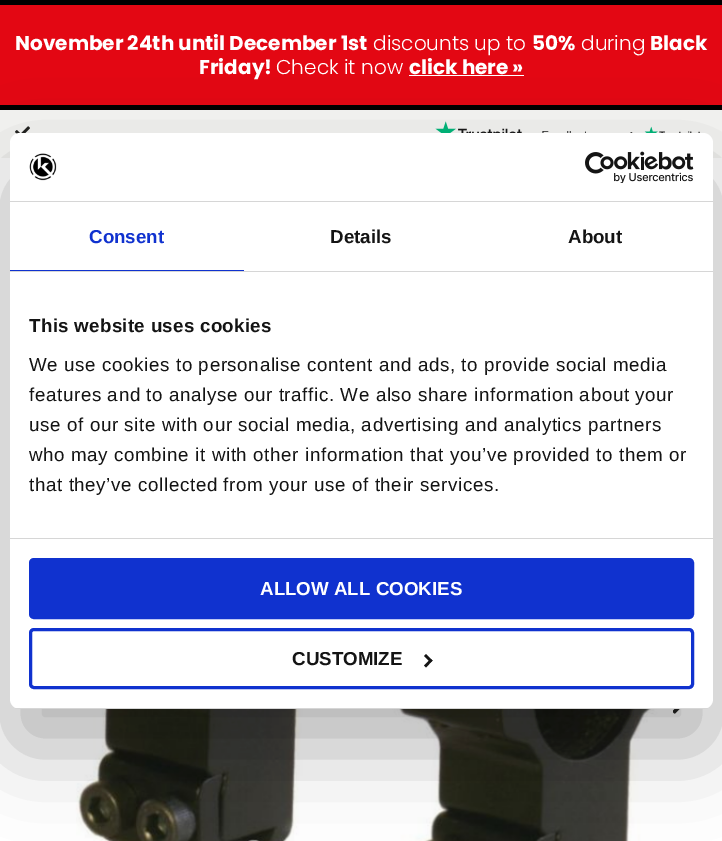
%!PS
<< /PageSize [722 841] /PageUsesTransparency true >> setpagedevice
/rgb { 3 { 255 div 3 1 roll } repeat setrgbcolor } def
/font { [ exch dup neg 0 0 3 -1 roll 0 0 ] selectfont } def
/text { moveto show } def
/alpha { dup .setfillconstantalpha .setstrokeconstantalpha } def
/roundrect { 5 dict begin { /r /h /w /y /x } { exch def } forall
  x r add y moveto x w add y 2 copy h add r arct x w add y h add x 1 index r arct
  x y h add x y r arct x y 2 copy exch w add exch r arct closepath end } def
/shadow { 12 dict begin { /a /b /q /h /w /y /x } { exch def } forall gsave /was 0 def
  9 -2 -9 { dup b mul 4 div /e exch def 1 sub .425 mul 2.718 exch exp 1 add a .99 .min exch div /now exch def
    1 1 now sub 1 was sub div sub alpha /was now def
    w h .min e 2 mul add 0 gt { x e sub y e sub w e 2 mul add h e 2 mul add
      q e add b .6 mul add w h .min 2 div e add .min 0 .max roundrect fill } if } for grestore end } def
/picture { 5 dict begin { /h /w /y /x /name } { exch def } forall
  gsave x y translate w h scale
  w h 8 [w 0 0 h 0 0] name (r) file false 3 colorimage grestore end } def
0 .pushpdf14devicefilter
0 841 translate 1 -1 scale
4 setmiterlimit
255 255 255 rgb
0 0 722 841 rectfill
0 0 0 rgb
0 0 722 110 rectfill
227 7 19 rgb
0 5 722 100 rectfill
255 255 255 rgb
409 75 115 1 rectfill
245 245 243 rgb
0 110 722 48 rectfill
(img_01.rgb) 15 126 15 8 picture
(img_02.rgb) 435 121 87 12 picture
(img_03.rgb) 542 126 158 7 picture
(img_04.rgb) 59 709 617 132 picture
(img_05.rgb) 673 709 7 5 picture
0 0 0 rgb
10 173 703 576 10 42.5 0.3 shadow
255 255 255 rgb
10 133 703 576 10 roundrect fill
214 214 214 rgb
10 201 703 1 rectfill
(img_06.rgb) 29 153 28 28 picture
(img_07.rgb) 585 151 109 32 picture
10 271 703 1 rectfill
16 50 207 rgb
10 270 234 1 rectfill
214 214 214 rgb
10 538 703 1 rectfill
gsave
10 133 703 576 10 roundrect clip newpath
10 708 703 1 rectfill
grestore
16 50 207 rgb
30.5 559.5 662 58 3.5 roundrect gsave fill grestore
3 setlinewidth
stroke
30.5 629.5 662 58 3.5 roundrect stroke
20 20 20 rgb
426 654 moveto 6.5 6.5 rlineto -2 2 rlineto -6.5 -6.5 rlineto closepath fill
430.5 659 moveto 2 1.5 rlineto -6.5 7 rlineto -2 -2 rlineto closepath fill
/Poppins-Bold 20 font
255 255 255 rgb
(November 24th until December 1st) 15 50 text
/Poppins-Light 20 font
(discounts up to) 373 50 text
/Poppins-Bold 20 font
(50%) 532 50 text
/Poppins-Light 20 font
(during) 581 50 text
/Poppins-Bold 20 font
(Black) 650 50 text
(Friday!) 199 74 text
/Poppins-Light 20 font
(Check it now) 276 74 text
/Poppins-Bold 20 font
(click here ») 409 74 text
/LiberationSans-Bold 18.75 font
16 50 207 rgb
(Consent) 89 243 text
20 20 20 rgb
(Details) 330 243 text
(About) 568 243 text
29 332 moveto 0.3 0 (This website uses cookies) ashow
/LiberationSans-Regular 18.75 font
29 371 moveto 0.62 0 (We use cookies to personalise content and ads, to provide social media) ashow
29 401 moveto 0.62 0 (features and to analyse our traffic. We also share information about your) ashow
29 431 moveto 0.62 0 (use of our site with our social media, advertising and analytics partners) ashow
29 461 moveto 0.62 0 (who may combine it with other information that you’ve provided to them or) ashow
29 491 moveto 0.62 0 (that they’ve collected from your use of their services.) ashow
/LiberationSans-Bold 18.75 font
255 255 255 rgb
(ALLOW ALL COOKIES) 260 595 text
20 20 20 rgb
(CUSTOMIZE) 292 665 text
.poppdf14devicefilter showpage
